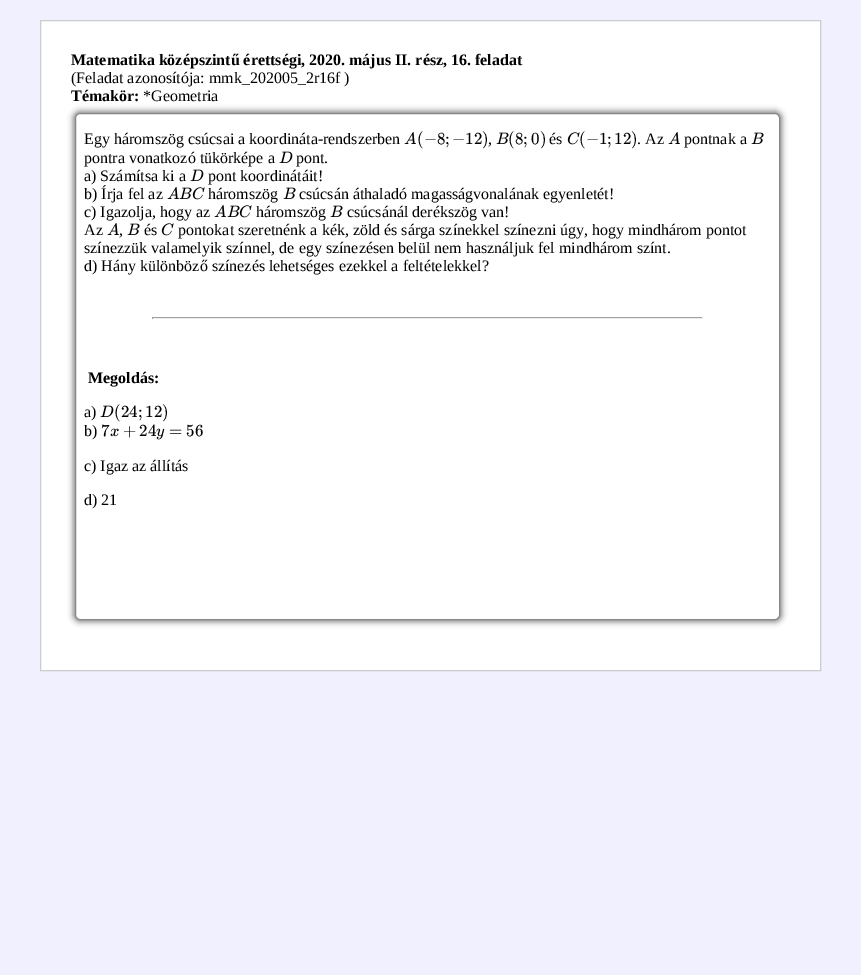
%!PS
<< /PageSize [861 975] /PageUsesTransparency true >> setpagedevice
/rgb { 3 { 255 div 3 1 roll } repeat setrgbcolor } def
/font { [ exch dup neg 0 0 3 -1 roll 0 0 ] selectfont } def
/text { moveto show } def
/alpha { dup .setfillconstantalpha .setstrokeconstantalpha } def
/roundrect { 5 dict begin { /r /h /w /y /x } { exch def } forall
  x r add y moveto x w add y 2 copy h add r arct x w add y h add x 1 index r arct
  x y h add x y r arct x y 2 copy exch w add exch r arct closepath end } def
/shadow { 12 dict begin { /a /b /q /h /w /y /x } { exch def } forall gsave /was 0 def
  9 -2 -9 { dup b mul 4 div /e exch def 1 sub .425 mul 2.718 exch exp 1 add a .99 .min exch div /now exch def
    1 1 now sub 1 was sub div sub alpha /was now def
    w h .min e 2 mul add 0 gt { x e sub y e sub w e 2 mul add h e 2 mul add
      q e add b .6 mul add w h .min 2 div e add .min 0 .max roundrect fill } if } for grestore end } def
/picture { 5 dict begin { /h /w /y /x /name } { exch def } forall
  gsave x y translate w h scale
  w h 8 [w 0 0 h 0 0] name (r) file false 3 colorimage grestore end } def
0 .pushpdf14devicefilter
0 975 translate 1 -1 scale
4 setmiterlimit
240 240 255 rgb
0 0 861 975 rectfill
255 255 255 rgb
40.5 20.5 moveto 780 0 rlineto 0 650 rlineto -780 0 rlineto closepath gsave fill grestore
204 204 204 rgb
stroke
128 128 128 rgb
73 111 709 511 7 3 1 shadow
255 255 255 rgb
75.5 113.5 704 506 4.5 roundrect gsave fill grestore
136 136 136 rgb
stroke
(img_01.rgb) 404 132 12 12 picture
(img_02.rgb) 496 132 13 12 picture
(img_03.rgb) 567 132 13 13 picture
(img_01.rgb) 668 132 12 12 picture
(img_02.rgb) 751 132 13 12 picture
(img_04.rgb) 279 151 14 12 picture
(img_04.rgb) 190 169 14 12 picture
(img_01.rgb) 167 187 12 12 picture
(img_02.rgb) 179 187 13 12 picture
(img_03.rgb) 192 187 13 13 picture
(img_02.rgb) 283 187 13 12 picture
(img_01.rgb) 214 205 12 12 picture
(img_02.rgb) 227 205 13 12 picture
(img_05.rgb) 239 205 13 13 picture
(img_02.rgb) 330 205 13 12 picture
(img_01.rgb) 107 223 12 12 picture
(img_02.rgb) 127 223 13 12 picture
(img_03.rgb) 161 223 13 13 picture
159 159 159 rgb
152 317 551 1 rectfill
238 238 238 rgb
702 317 1 2 rectfill
152 318 551 1 rectfill
159 159 159 rgb
152 317 1 2 rectfill
(img_04.rgb) 100 405 14 12 picture
(img_06.rgb) 110 428 9 9 picture
(img_07.rgb) 156 428 9 12 picture
/LiberationSerif-Bold 16 font
0 0 0 rgb
(Matematika középszintű érettségi, 2020. május II. rész, 16. feladat) 71 65 text
/LiberationSerif-Regular 16 font
(\(Feladat azonosítója: mmk_202005_2r16f \)) 71 83 text
/LiberationSerif-Bold 16 font
(Témakör:) 71 101 text
/LiberationSerif-Regular 16 font
(*Geometria) 143 101 text
(Egy háromszög csúcsai a koordináta-rendszerben) 84 144 text
/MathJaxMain-Regular 17 font
(\(−8;) 417 144 text
(−12\)) 452 144 text
/LiberationSerif-Regular 16 font
(,) 488 144 text
/MathJaxMain-Regular 17 font
(\(8;) 508 144 text
(0\)) 531 144 text
/LiberationSerif-Regular 16 font
(és) 549 144 text
/MathJaxMain-Regular 17 font
(\(−1;) 579 144 text
(12\)) 614 144 text
/LiberationSerif-Regular 16 font
(. Az) 637 144 text
(pontnak a) 684 144 text
(pontra vonatkozó tükörképe a) 84 163 text
(pont.) 296 163 text
(a\) Számítsa ki a) 84 181 text
(pont koordinátáit!) 208 181 text
(b\) Írja fel az) 84 199 text
(háromszög) 208 199 text
(csúcsán áthaladó magasságvonalának egyenletét!) 299 199 text
(c\) Igazolja, hogy az) 84 217 text
(háromszög) 256 217 text
(csúcsánál derékszög van!) 347 217 text
(Az) 84 235 text
(és) 144 235 text
(pontokat szeretnénk a kék, zöld és sárga színekkel színezni úgy, hogy mindhárom pontot) 178 235 text
(,) 119 235 text
(színezzük valamelyik színnel, de egy színezésen belül nem használjuk fel mindhárom színt.) 84 253 text
(d\) Hány különböző színezés lehetséges ezekkel a feltételekkel?) 84 271 text
/LiberationSerif-Bold 16 font
(Megoldás:) 88 383 text
/LiberationSerif-Regular 16 font
(a\)) 84 417 text
/MathJaxMain-Regular 17 font
(\(24;) 114 417 text
(12\)) 145 417 text
/LiberationSerif-Regular 16 font
(b\)) 84 436 text
/MathJaxMain-Regular 17 font
(7) 101 436 text
(+) 123 436 text
(24) 139 436 text
(=) 169 436 text
(56) 186 436 text
/LiberationSerif-Regular 16 font
(c\) Igaz az állítás) 84 471 text
(d\) 21) 84 505 text
.poppdf14devicefilter showpage
